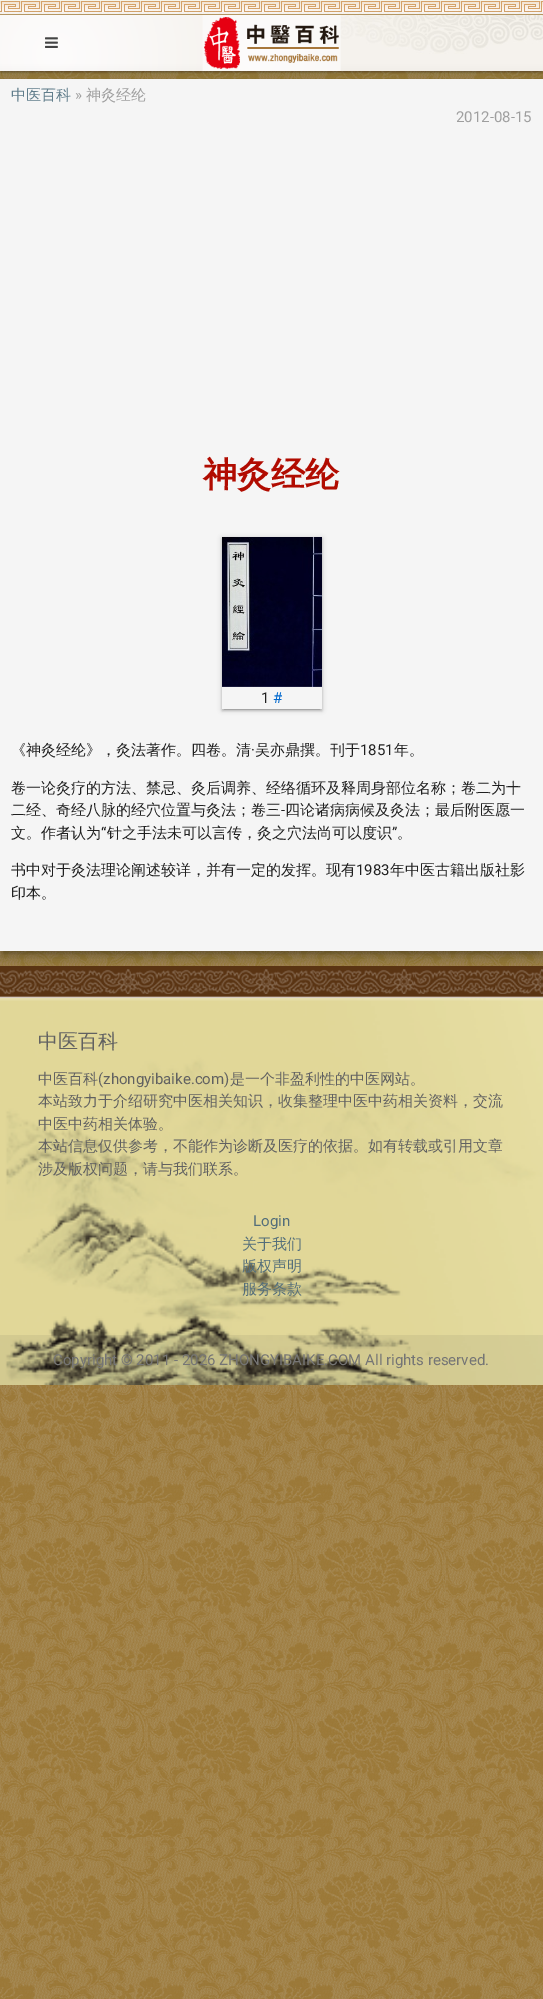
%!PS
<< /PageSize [543 1999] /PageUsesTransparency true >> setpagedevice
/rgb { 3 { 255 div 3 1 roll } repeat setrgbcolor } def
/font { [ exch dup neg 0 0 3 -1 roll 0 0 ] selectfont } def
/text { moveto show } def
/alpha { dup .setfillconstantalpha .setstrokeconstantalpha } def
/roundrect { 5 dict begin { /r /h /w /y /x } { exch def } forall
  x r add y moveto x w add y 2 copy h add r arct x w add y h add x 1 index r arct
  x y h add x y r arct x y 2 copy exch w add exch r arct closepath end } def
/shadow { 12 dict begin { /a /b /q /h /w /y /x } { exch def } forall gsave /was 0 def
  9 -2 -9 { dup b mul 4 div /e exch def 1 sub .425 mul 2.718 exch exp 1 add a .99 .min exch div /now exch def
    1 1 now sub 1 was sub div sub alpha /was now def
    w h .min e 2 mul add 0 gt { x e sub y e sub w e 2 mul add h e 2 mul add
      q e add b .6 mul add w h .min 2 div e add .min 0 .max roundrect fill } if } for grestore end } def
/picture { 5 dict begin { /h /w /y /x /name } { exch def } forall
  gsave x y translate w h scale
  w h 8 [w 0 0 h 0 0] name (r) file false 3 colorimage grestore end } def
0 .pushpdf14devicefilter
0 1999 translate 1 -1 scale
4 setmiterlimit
255 255 255 rgb
0 0 543 1999 rectfill
(img_01.rgb) 0 71 543 1928 picture
(img_02.rgb) 0 0 543 15 picture
0 0 0 rgb
0 16 543 56 0 2.5 0.2 shadow
2 20 539 52 0 0.5 0.12 shadow
0 17 543 56 0 1 0.14 shadow
(img_03.rgb) 0 15 543 56 picture
(img_04.rgb) 45 37 13 11 picture
-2 80 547 876 0 7 0.12 shadow
-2 85 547 876 0 8.5 0.14 shadow
(img_05.rgb) 202 15 139 56 picture
3 87 537 866 0 2.5 0.2 shadow
245 245 245 rgb
0 79 543 872 rectfill
gsave
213 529 moveto 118 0 rlineto 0 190 rlineto -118 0 rlineto closepath 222 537 moveto 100 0 rlineto 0 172 rlineto -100 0 rlineto closepath eoclip newpath
0 0 0 rgb
222 538 100 172 0 2.5 0.2 shadow
grestore
gsave
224 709 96 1 rectclip
0 0 0 rgb
224 542 96 168 0 0.5 0.12 shadow
grestore
gsave
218 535 moveto 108 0 rlineto 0 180 rlineto -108 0 rlineto closepath 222 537 moveto 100 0 rlineto 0 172 rlineto -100 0 rlineto closepath eoclip newpath
0 0 0 rgb
222 539 100 172 0 1 0.14 shadow
grestore
(img_06.rgb) 222 537 100 150 picture
(img_07.rgb) 0 966 543 32 picture
(img_08.rgb) 0 998 543 387 picture
0.08 alpha
51 51 51 rgb
0 1335 543 50 rectfill
/WenQuanYiZenHei-Medium 15 font
1 alpha
96 125 139 rgb
(中医百科) 11 100 text
/Roboto-Regular 15 font
158 158 158 rgb
(») 75 100 text
/WenQuanYiZenHei-Medium 15 font
(神灸经纶) 86 100 text
/Roboto-Regular 15 font
(2012-08-15) 456 122 text
/WenQuanYiZenHei-Bold 34 font
177 12 1 rgb
(神灸经纶) 203 486 text
/Roboto-Regular 15 font
32 32 32 rgb
(1) 261 703 text
2 104 205 rgb
(#) 273 703 text
/WenQuanYiZenHei-Medium 15 font
32 32 32 rgb
(《神灸经纶》，灸法著作。四卷。清) 11 755 text
/Roboto-Regular 15 font
(·) 251 755 text
/WenQuanYiZenHei-Medium 15 font
(吴亦鼎撰。刊于) 255 755 text
/Roboto-Regular 15 font
(1851) 360 755 text
/WenQuanYiZenHei-Medium 15 font
(年。) 394 755 text
(卷一论灸疗的方法、禁忌、灸后调养、经络循环及释周身部位名称；卷二为十) 11 793 text
(二经、奇经八脉的经穴位置与灸法；卷三) 11 815 text
/Roboto-Regular 15 font
(-) 281 815 text
/WenQuanYiZenHei-Medium 15 font
(四论诸病病候及灸法；最后附医愿一) 285 815 text
(文。作者认为) 11 838 text
/Roboto-Regular 15 font
(“) 101 838 text
/WenQuanYiZenHei-Medium 15 font
(针之手法未可以言传，灸之穴法尚可以度识) 107 838 text
/Roboto-Regular 15 font
(”) 392 838 text
/WenQuanYiZenHei-Medium 15 font
(。) 397 838 text
(书中对于灸法理论阐述较详，并有一定的发挥。现有) 11 875 text
/Roboto-Regular 15 font
(1983) 356 875 text
/WenQuanYiZenHei-Medium 15 font
(年中医古籍出版社影) 390 875 text
(印本。) 11 898 text
/WenQuanYiZenHei-Medium 20 font
97 97 97 rgb
(中医百科) 38 1048 text
/WenQuanYiZenHei-Medium 15 font
(中医百科) 38 1084 text
/Roboto-Regular 15 font
(\(zhongyibaike.com\)) 98 1084 text
/WenQuanYiZenHei-Medium 15 font
(是一个非盈利性的中医网站。) 230 1084 text
(本站致力于介绍研究中医相关知识，收集整理中医中药相关资料，交流) 38 1106 text
(中医中药相关体验。) 38 1129 text
(本站信息仅供参考，不能作为诊断及医疗的依据。如有转载或引用文章) 38 1151 text
(涉及版权问题，请与我们联系。) 38 1174 text
/Roboto-Regular 15 font
84 110 122 rgb
(Login) 253 1226 text
/WenQuanYiZenHei-Medium 15 font
(关于我们) 242 1249 text
(版权声明) 242 1271 text
(服务条款) 242 1294 text
/Roboto-Regular 15 font
117 117 117 rgb
(Copyright © 2011 - 2026 ZHONGYIBAIKE.COM All rights reserved.) 53 1365 text
.poppdf14devicefilter showpage
